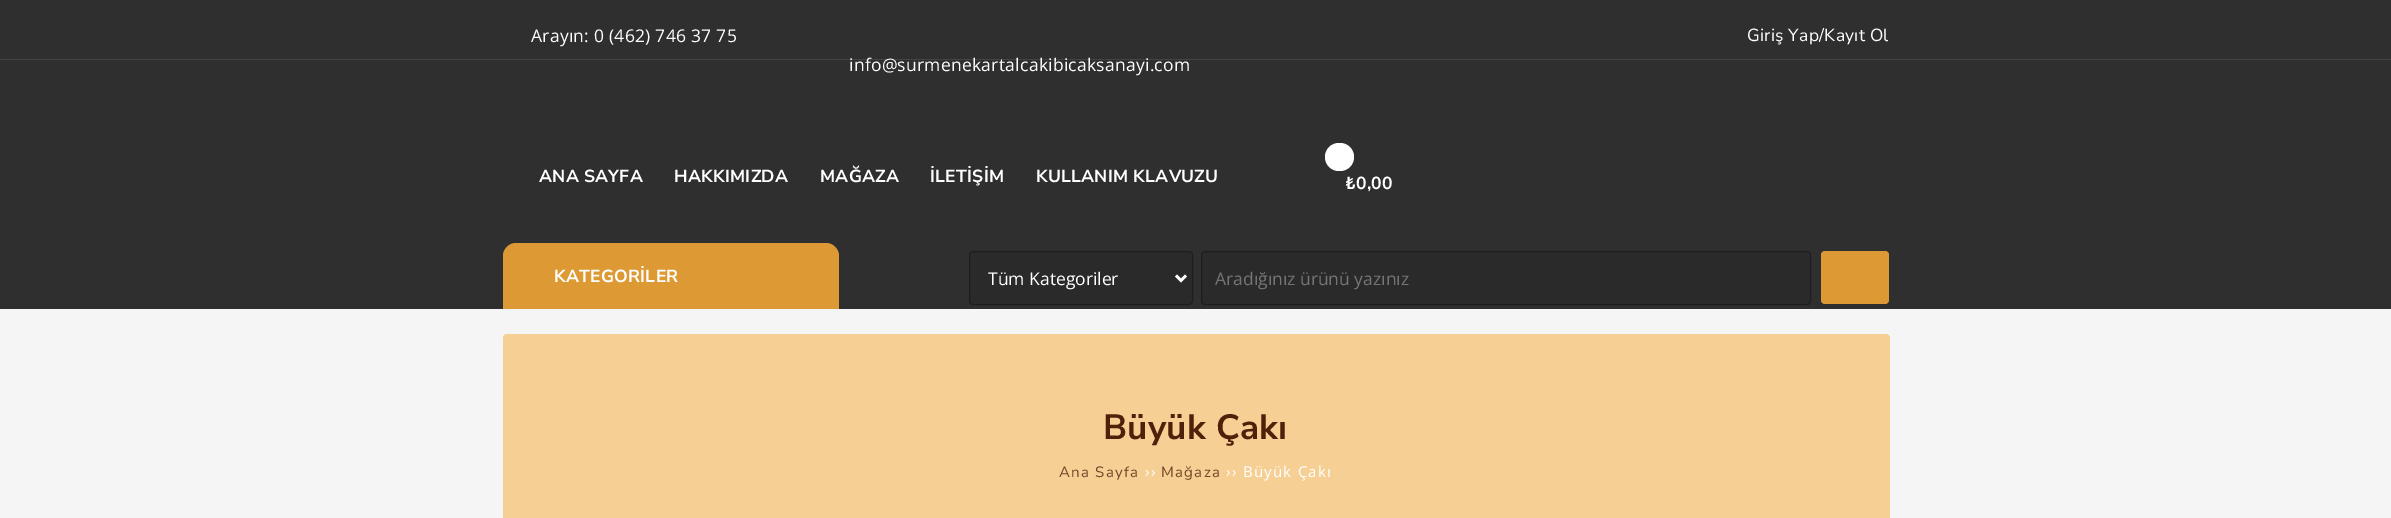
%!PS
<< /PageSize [2391 518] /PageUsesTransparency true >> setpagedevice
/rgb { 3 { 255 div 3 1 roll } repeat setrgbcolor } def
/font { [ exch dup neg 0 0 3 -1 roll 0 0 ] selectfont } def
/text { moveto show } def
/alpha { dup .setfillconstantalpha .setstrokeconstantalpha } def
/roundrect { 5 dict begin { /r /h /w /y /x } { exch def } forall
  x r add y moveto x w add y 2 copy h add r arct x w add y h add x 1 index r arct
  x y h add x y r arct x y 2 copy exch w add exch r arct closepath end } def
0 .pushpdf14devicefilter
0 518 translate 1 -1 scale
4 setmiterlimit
245 245 245 rgb
0 0 2391 518 rectfill
47 47 47 rgb
0 0 2391 309 rectfill
68 68 68 rgb
0 59 2391 1 rectfill
255 255 255 rgb
1325 143 29 28 14 roundrect fill
221 153 51 rgb
516 243 moveto 310 0 rlineto 7 0 13 6 13 13 rcurveto 0 53 rlineto -336 0 rlineto 0 -53 rlineto 0 -7 6 -13 13 -13 rcurveto closepath fill
0.1 alpha
0 0 0 rgb
969 251 224 54 4 roundrect fill
0.3 alpha
969.5 251.5 223 53 3.5 roundrect stroke
1 alpha
255 255 255 rgb
2.5 setlinewidth
1176 275.5 moveto 5 5 rlineto 5 -5 rlineto stroke
0.1 alpha
0 0 0 rgb
1201 251 610 54 4 roundrect fill
0.3 alpha
1 setlinewidth
1201.5 251.5 609 53 3.5 roundrect stroke
1 alpha
221 153 51 rgb
1821 251 68 53 4 roundrect fill
246 207 149 rgb
503 334 1387 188 4 roundrect fill
/OpenSans-Regular 17.5 font
255 255 255 rgb
531 42 moveto 0.25 0 (Arayın: 0 \(462\) 746 37 75) ashow
849 71 moveto 0.25 0 (info@surmenekartalcakibicaksanayi.com) ashow
/NunitoSans-Regular 17.5 font
1747 41 moveto 0.25 0 (Giriş Yap/Kayıt Ol) ashow
/NunitoSans-Bold 17.5 font
539 182 moveto 0.25 0 (ANA SAYFA) ashow
674 182 moveto 0.25 0 (HAKKIMIZDA) ashow
820 182 moveto 0.25 0 (MAĞAZA) ashow
930 182 moveto 0.25 0 (İLETİŞİM) ashow
1036 182 moveto 0.25 0 (KULLANIM KLAVUZU) ashow
1345 189 moveto 0.25 0 (₺) ashow
1356 189 moveto 0.25 0 (0,00) ashow
554 282 moveto 0.25 0 (KATEGORİLER) ashow
/OpenSans-Regular 17.5 font
(Tüm Kategoriler) 988 285 text
117 117 117 rgb
(Aradığınız ürünü yazınız) 1215 285 text
/NunitoSans-Bold 35 font
79 33 10 rgb
1103 439 moveto 0.25 0 (Büyük Çakı) ashow
/NunitoSans-Regular 15 font
112 68 38 rgb
1059 477 moveto 1.25 0 (Ana Sayfa) ashow
/OpenSans-Regular 15 font
255 255 255 rgb
1145 477 moveto 1.25 0 (››) ashow
/NunitoSans-Regular 15 font
112 68 38 rgb
1161 477 moveto 1.25 0 (Mağaza) ashow
/OpenSans-Regular 15 font
255 255 255 rgb
1226 477 moveto 1.25 0 (›› Büyük Çakı) ashow
.poppdf14devicefilter showpage
